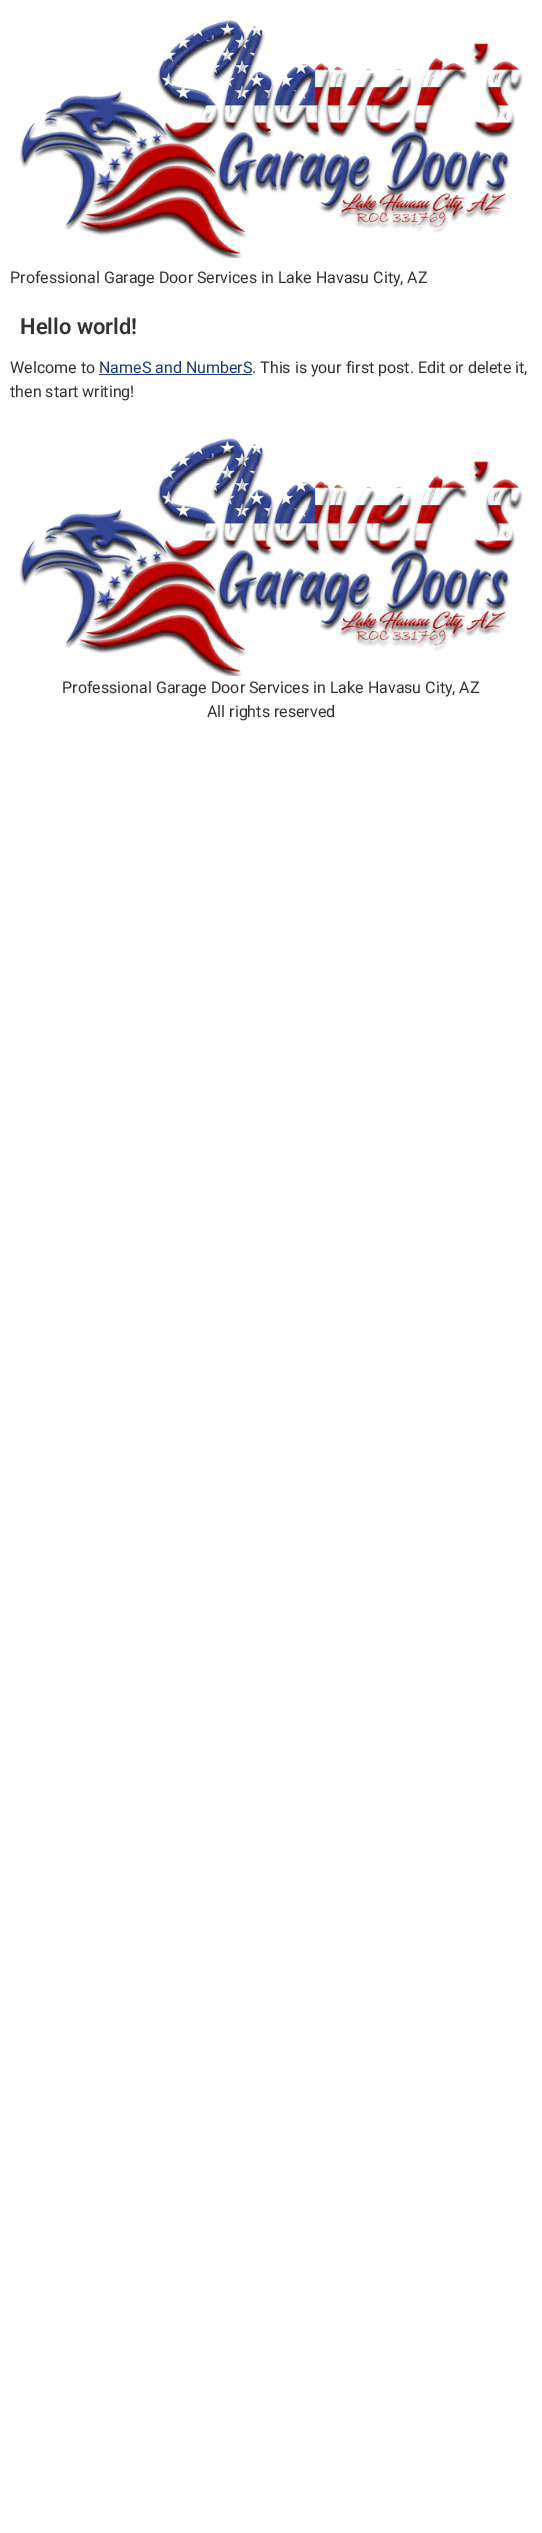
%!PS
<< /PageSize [542 2533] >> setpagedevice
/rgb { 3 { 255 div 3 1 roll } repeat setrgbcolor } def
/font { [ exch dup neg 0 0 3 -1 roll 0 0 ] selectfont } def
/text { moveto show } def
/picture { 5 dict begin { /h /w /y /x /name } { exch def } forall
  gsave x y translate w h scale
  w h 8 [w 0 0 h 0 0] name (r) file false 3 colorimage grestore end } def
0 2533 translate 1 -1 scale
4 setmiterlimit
255 255 255 rgb
0 0 542 2533 rectfill
(img_01.rgb) 19 20 504 238 picture
29 58 130 rgb
99 374 153 1 rectfill
(img_01.rgb) 19 438 504 238 picture
/Roboto-Regular 16 font
51 51 51 rgb
(Professional Garage Door Services in Lake Havasu City, AZ) 10 283 text
/Roboto-SemiBold 22 font
(Hello world!) 20 334 text
/Roboto-Regular 16 font
(Welcome to) 10 373 text
29 58 130 rgb
(NameS and NumberS) 99 373 text
51 51 51 rgb
(. This is your first post. Edit or delete it,) 252 373 text
(then start writing!) 10 397 text
(Professional Garage Door Services in Lake Havasu City, AZ) 62 693 text
(All rights reserved) 207 717 text
showpage
